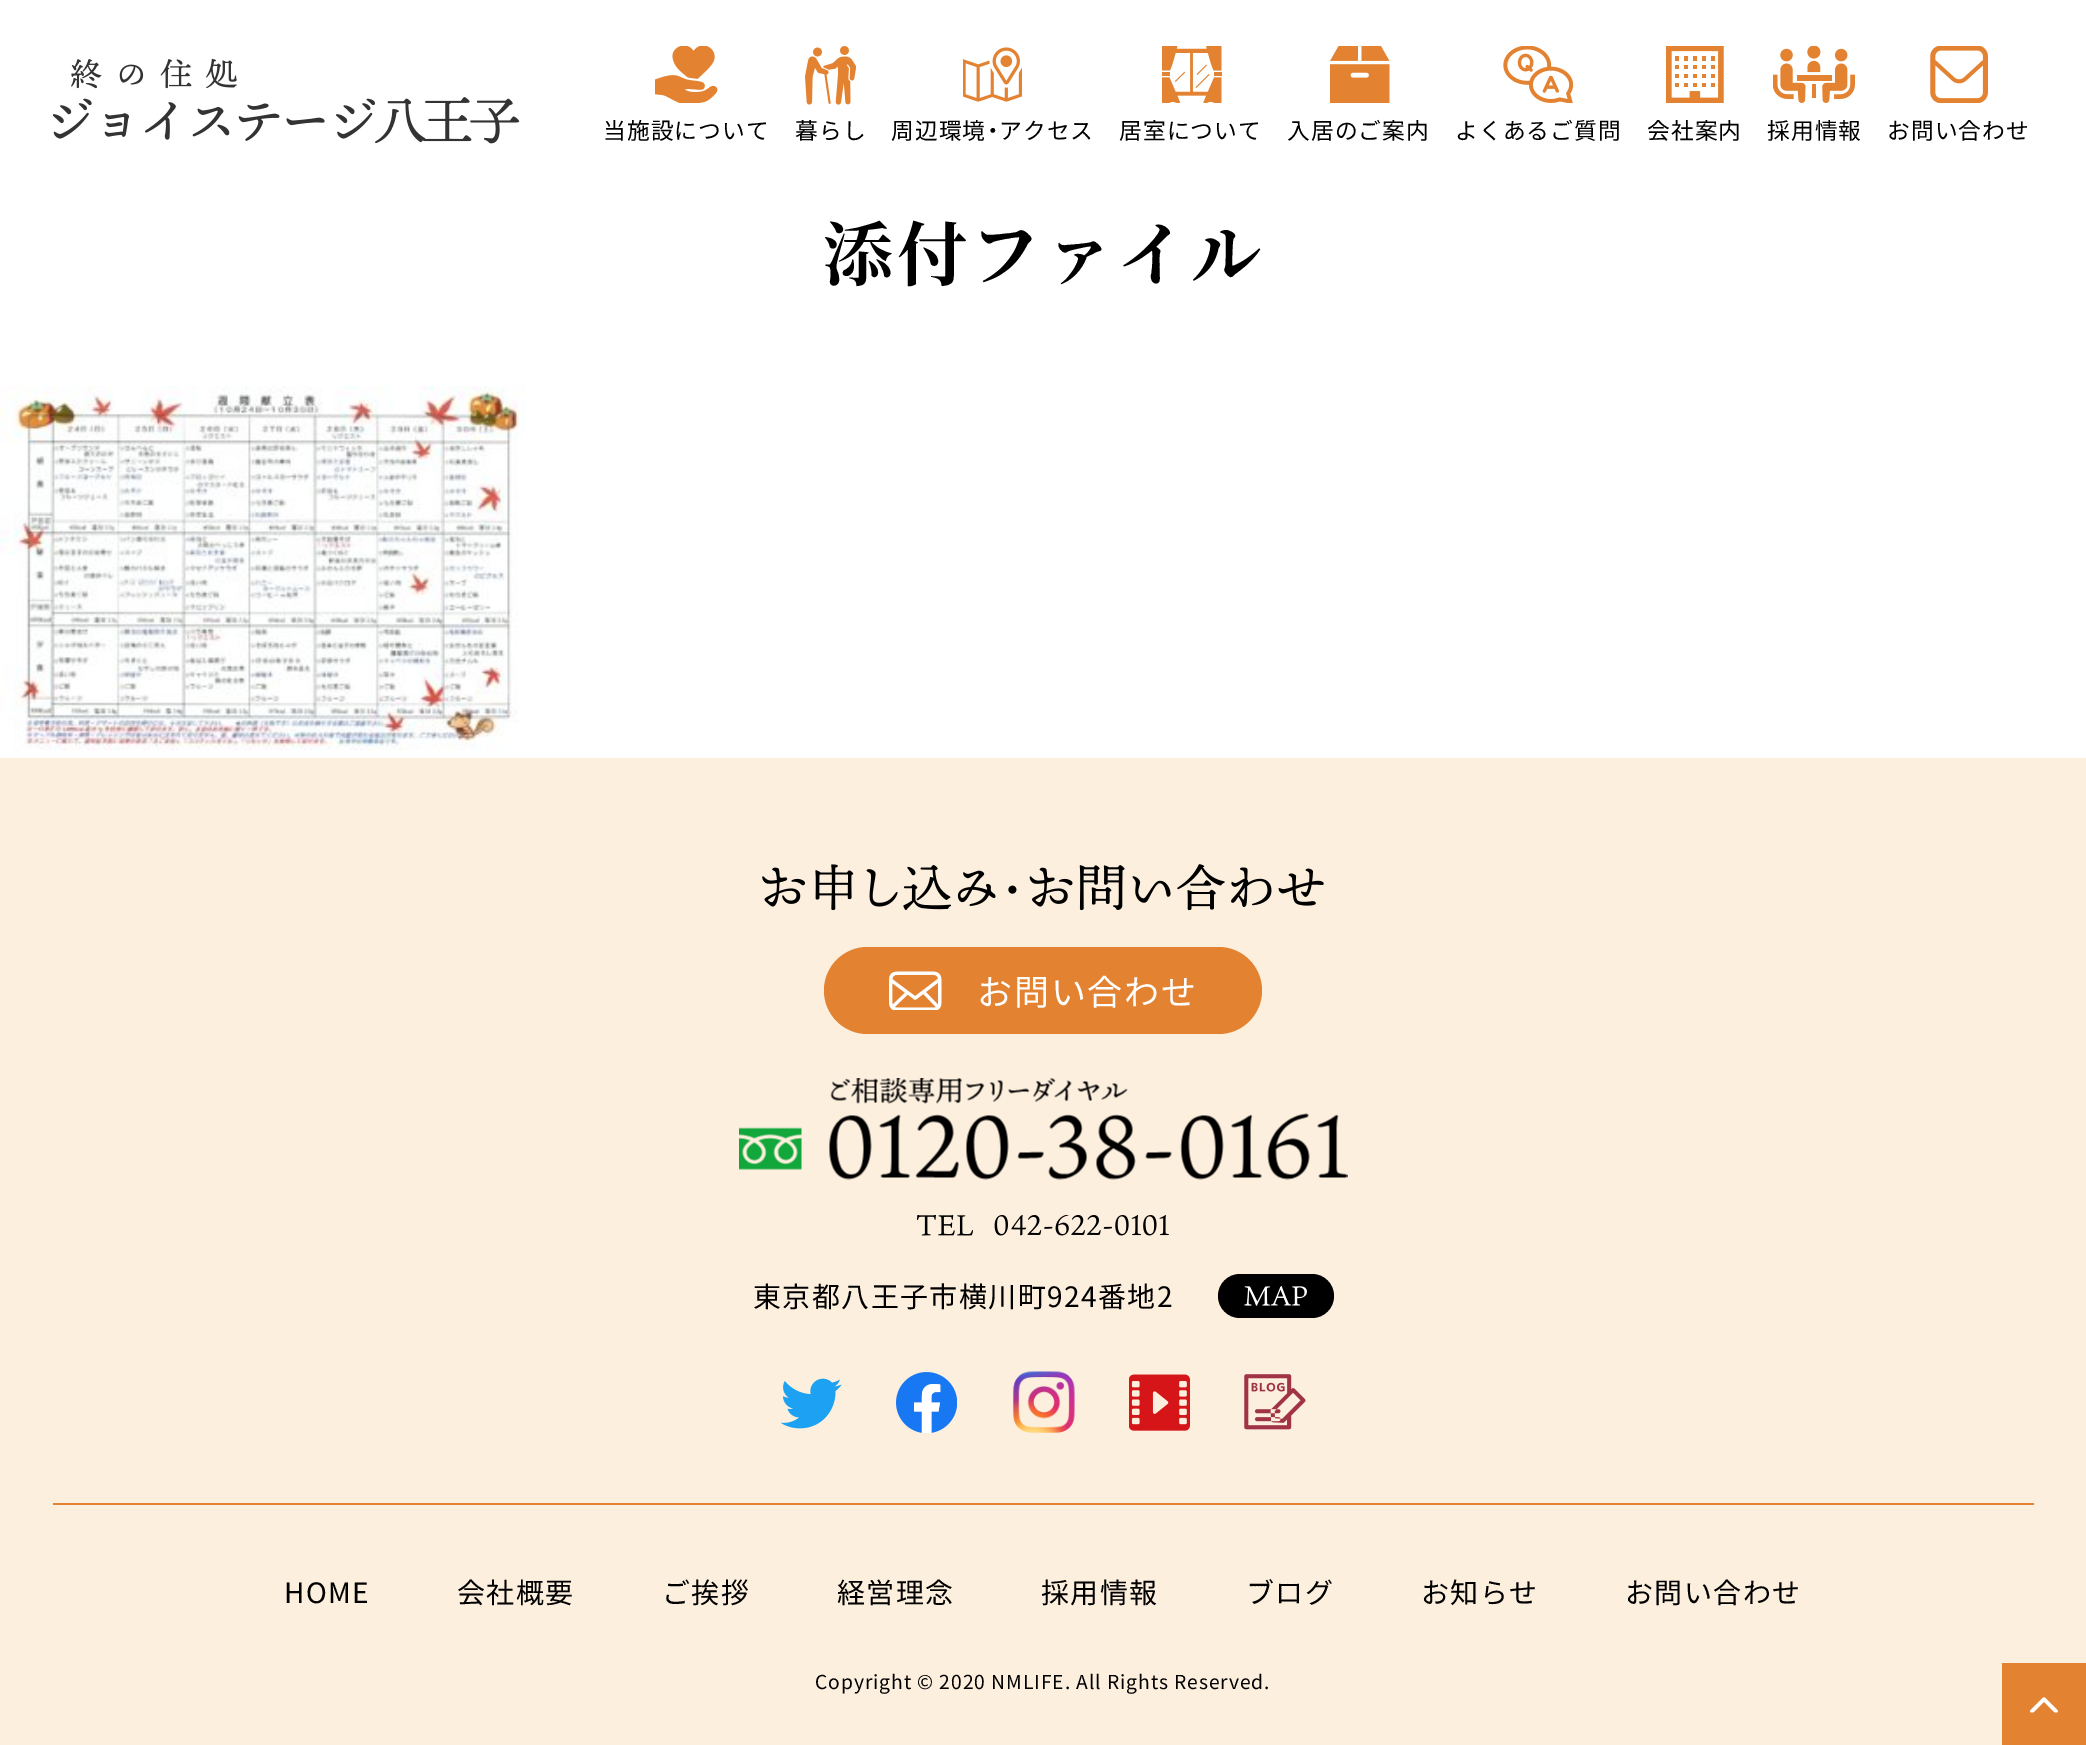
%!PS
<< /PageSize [2086 1745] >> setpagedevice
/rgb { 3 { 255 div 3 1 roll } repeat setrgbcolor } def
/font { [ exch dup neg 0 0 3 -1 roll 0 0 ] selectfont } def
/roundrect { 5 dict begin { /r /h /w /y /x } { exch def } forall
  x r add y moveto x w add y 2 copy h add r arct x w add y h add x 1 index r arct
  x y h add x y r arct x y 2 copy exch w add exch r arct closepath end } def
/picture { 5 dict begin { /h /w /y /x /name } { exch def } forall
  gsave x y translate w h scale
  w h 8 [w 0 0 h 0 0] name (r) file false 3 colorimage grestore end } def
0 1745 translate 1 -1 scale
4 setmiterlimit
255 255 255 rgb
0 0 2086 1745 rectfill
(img_01.rgb) 53 58 467 86 picture
(img_02.rgb) 655 46 63 57 picture
(img_03.rgb) 805 46 51 59 picture
(img_04.rgb) 963 47 59 55 picture
(img_05.rgb) 1162 46 60 57 picture
(img_06.rgb) 1330 46 60 57 picture
(img_07.rgb) 1503 46 70 57 picture
(img_08.rgb) 1666 46 58 57 picture
(img_09.rgb) 1773 46 82 57 picture
(img_10.rgb) 1930 46 58 57 picture
(img_11.rgb) 0 386 525 365 picture
252 239 222 rgb
0 758 2086 987 rectfill
(img_12.rgb) 762 864 562 47 picture
227 130 49 rgb
824 947 438 87 43.5 roundrect fill
(img_13.rgb) 889 971 53 39 picture
(img_14.rgb) 739 1078 609 102 picture
(img_15.rgb) 917 1215 252 21 picture
0 0 0 rgb
1218 1274 116 44 22 roundrect fill
(img_16.rgb) 1244 1286 63 20 picture
(img_17.rgb) 781 1378 61 51 picture
(img_18.rgb) 896 1372 61 61 picture
(img_19.rgb) 1012 1371 63 62 picture
(img_20.rgb) 1129 1374 61 57 picture
(img_21.rgb) 1244 1374 62 56 picture
227 130 49 rgb
53 1503 1981 2 rectfill
2002 1663 84 82 rectfill
(img_22.rgb) 2030 1697 28 16 picture
/NotoSansJP-Regular 22.75 font
0 0 0 rgb
603 139 moveto 1 0 (当施設について) ashow
795 139 moveto 1 0 (暮らし) ashow
891 139 moveto 1 0 (周辺環境) ashow
/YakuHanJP-Regular 22.75 font
987 139 moveto 1 0 (・) ashow
/NotoSansJP-Regular 22.75 font
999 139 moveto 1 0 (アクセス) ashow
1119 139 moveto 1 0 (居室について) ashow
1287 139 moveto 1 0 (入居のご案内) ashow
1455 139 moveto 1 0 (よくあるご質問) ashow
1647 139 moveto 1 0 (会社案内) ashow
1767 139 moveto 1 0 (採用情報) ashow
1887 139 moveto 1 0 (お問い合わせ) ashow
/NotoSerifJP-Bold 70 font
823 280 moveto 3.5 0 (添付ファイル) ashow
/NotoSansJP-Regular 35 font
255 255 255 rgb
977 1005 moveto 1.75 0 (お問い合わせ) ashow
/NotoSansJP-Regular 28 font
0 0 0 rgb
753 1307 moveto 1.4 0 (東京都八王子市横川町924番地2) ashow
284 1603 moveto 1.4 0 (HOME) ashow
457 1603 moveto 1.4 0 (会社概要) ashow
662 1603 moveto 1.4 0 (ご挨拶) ashow
837 1603 moveto 1.4 0 (経営理念) ashow
1041 1603 moveto 1.4 0 (採用情報) ashow
1246 1603 moveto 1.4 0 (ブログ) ashow
1421 1603 moveto 1.4 0 (お知らせ) ashow
1625 1603 moveto 1.4 0 (お問い合わせ) ashow
/NotoSansJP-Regular 19.25 font
815 1689 moveto 0.95 0 (Copyright © 2020 NMLIFE. All Rights Reserved.) ashow
showpage
